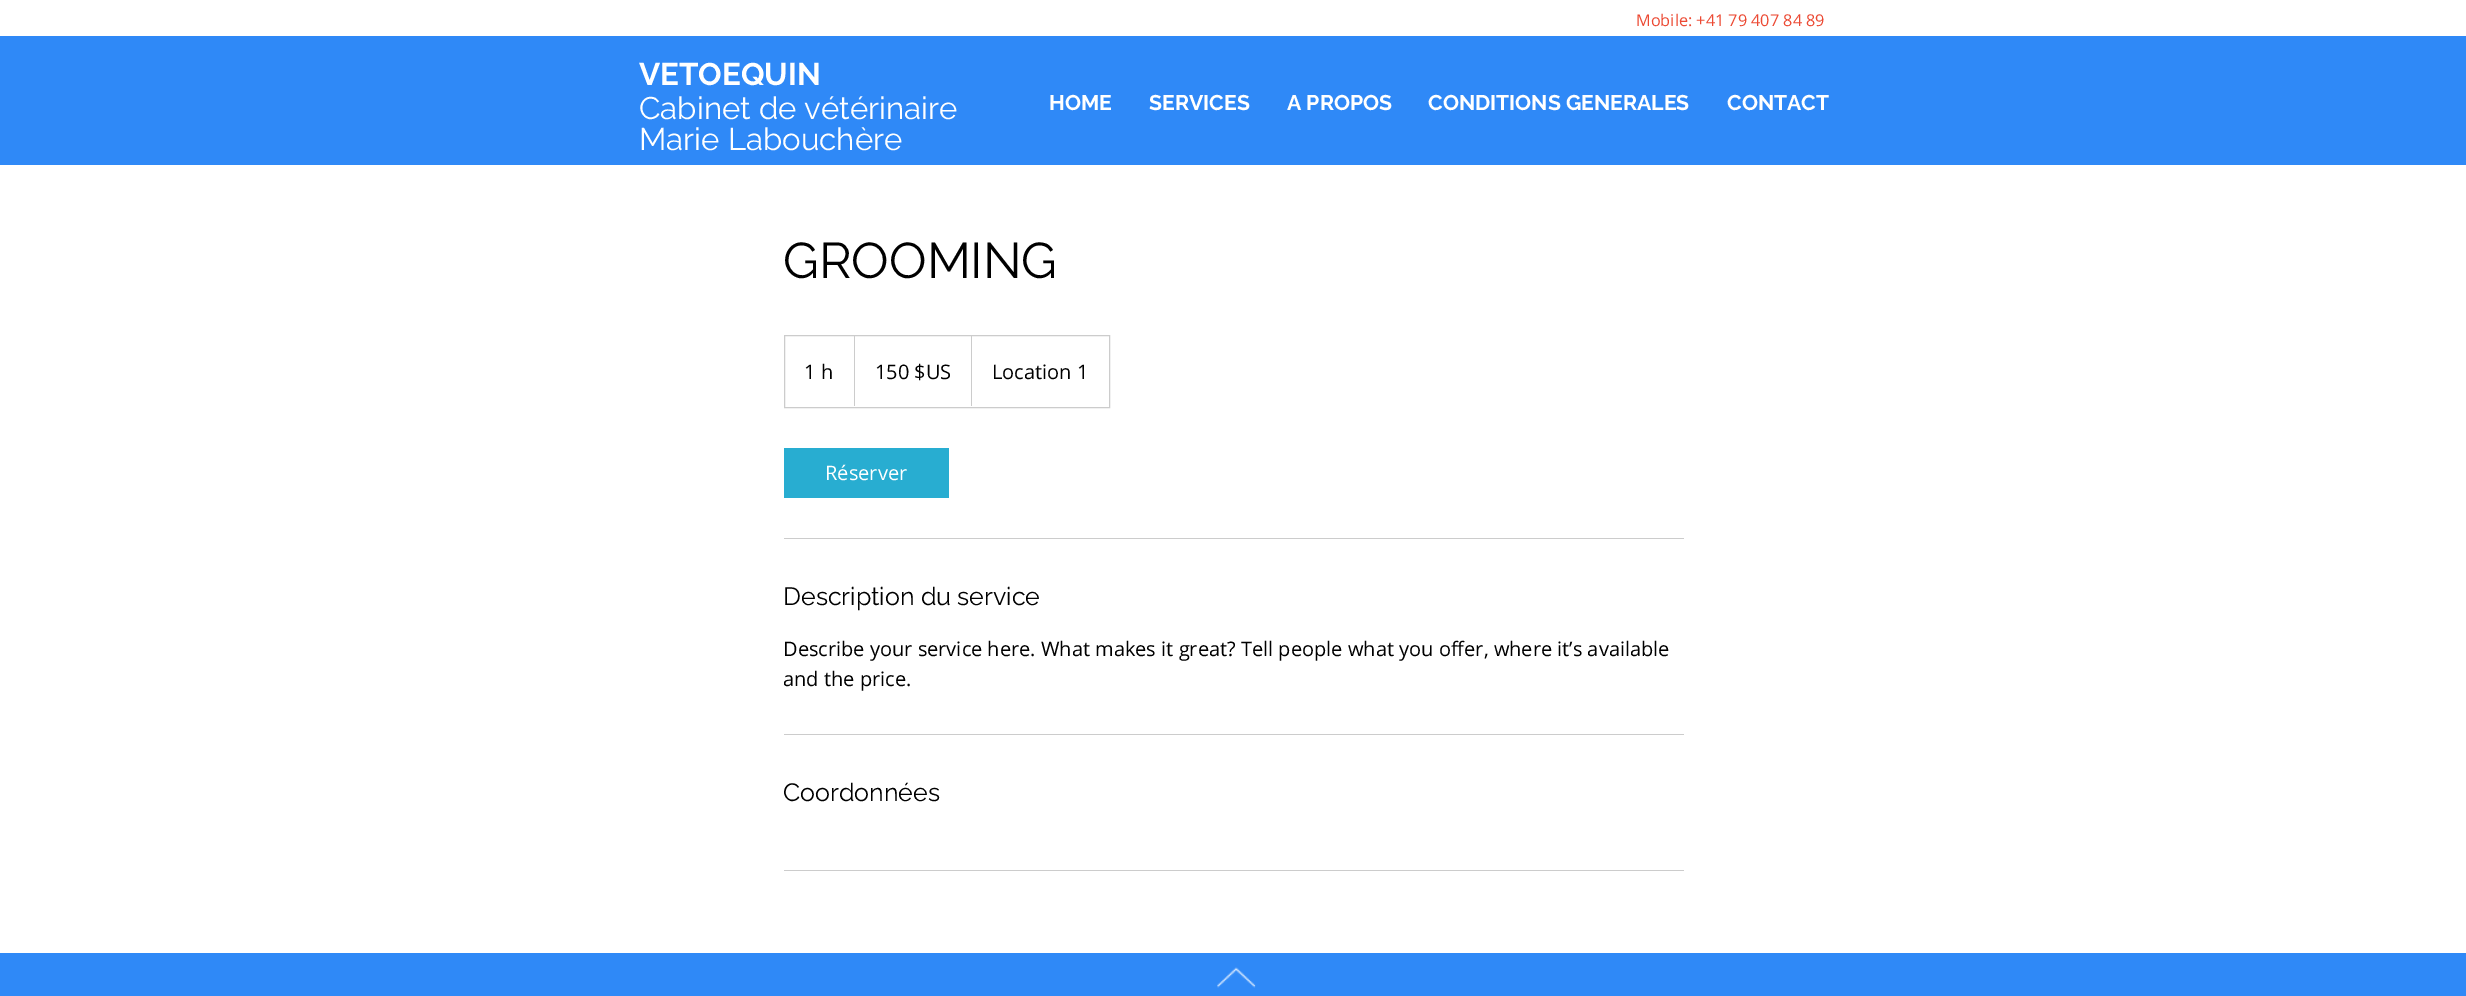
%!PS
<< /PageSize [2466 996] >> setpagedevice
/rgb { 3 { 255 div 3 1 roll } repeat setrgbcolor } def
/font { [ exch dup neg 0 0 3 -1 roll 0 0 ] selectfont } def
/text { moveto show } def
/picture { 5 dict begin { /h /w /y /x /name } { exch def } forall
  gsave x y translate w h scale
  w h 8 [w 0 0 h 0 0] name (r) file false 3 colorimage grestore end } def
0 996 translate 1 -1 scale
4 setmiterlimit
255 255 255 rgb
0 0 2466 996 rectfill
47 137 247 rgb
0 36 2466 129 rectfill
204 204 204 rgb
784.5 335.5 325 72 rectstroke
854 406 moveto 0 -71 rlineto 1 1 rlineto 0 70 rlineto closepath fill
971 406 moveto 0 -71 rlineto 1 1 rlineto 0 70 rlineto closepath fill
40 173 209 rgb
784 448 165 50 rectfill
204 204 204 rgb
784 538 900 1 rectfill
784 734 900 1 rectfill
784 870 900 1 rectfill
47 137 247 rgb
0 953 2466 43 rectfill
(img_01.rgb) 1217 967 39 21 picture
/OpenSans-Regular 16.25 font
236 74 52 rgb
(Mobile: +41 79 407 84 89) 1636 26 text
/Raleway-Bold 31.25 font
255 255 255 rgb
(VETOEQUIN) 639 85 text
/Raleway-Regular 31.25 font
(Cabinet de vétérinaire) 639 119 text
(Marie Labouchère) 639 150 text
/Raleway-Bold 21.25 font
(HOME) 1049 110 text
(SERVICES) 1149 110 text
(A PROPOS) 1287 110 text
(CONDITIONS GENERALES) 1428 110 text
(CONTACT) 1727 110 text
/Raleway-Regular 50 font
0 0 0 rgb
(GROOMING) 783 278 text
/OpenSans-Regular 20 font
(1 h) 804 379 text
(150 $US) 875 379 text
(Location 1) 992 379 text
255 255 255 rgb
(Réserver) 825 480 text
/Raleway-Regular 25 font
0 0 0 rgb
(Description du service) 783 605 text
/OpenSans-Regular 20 font
(Describe your service here. What makes it great? Tell people what you offer, where it’s available) 783 656 text
(and the price.) 783 686 text
/Raleway-Regular 25 font
(Coordonnées) 783 801 text
showpage
